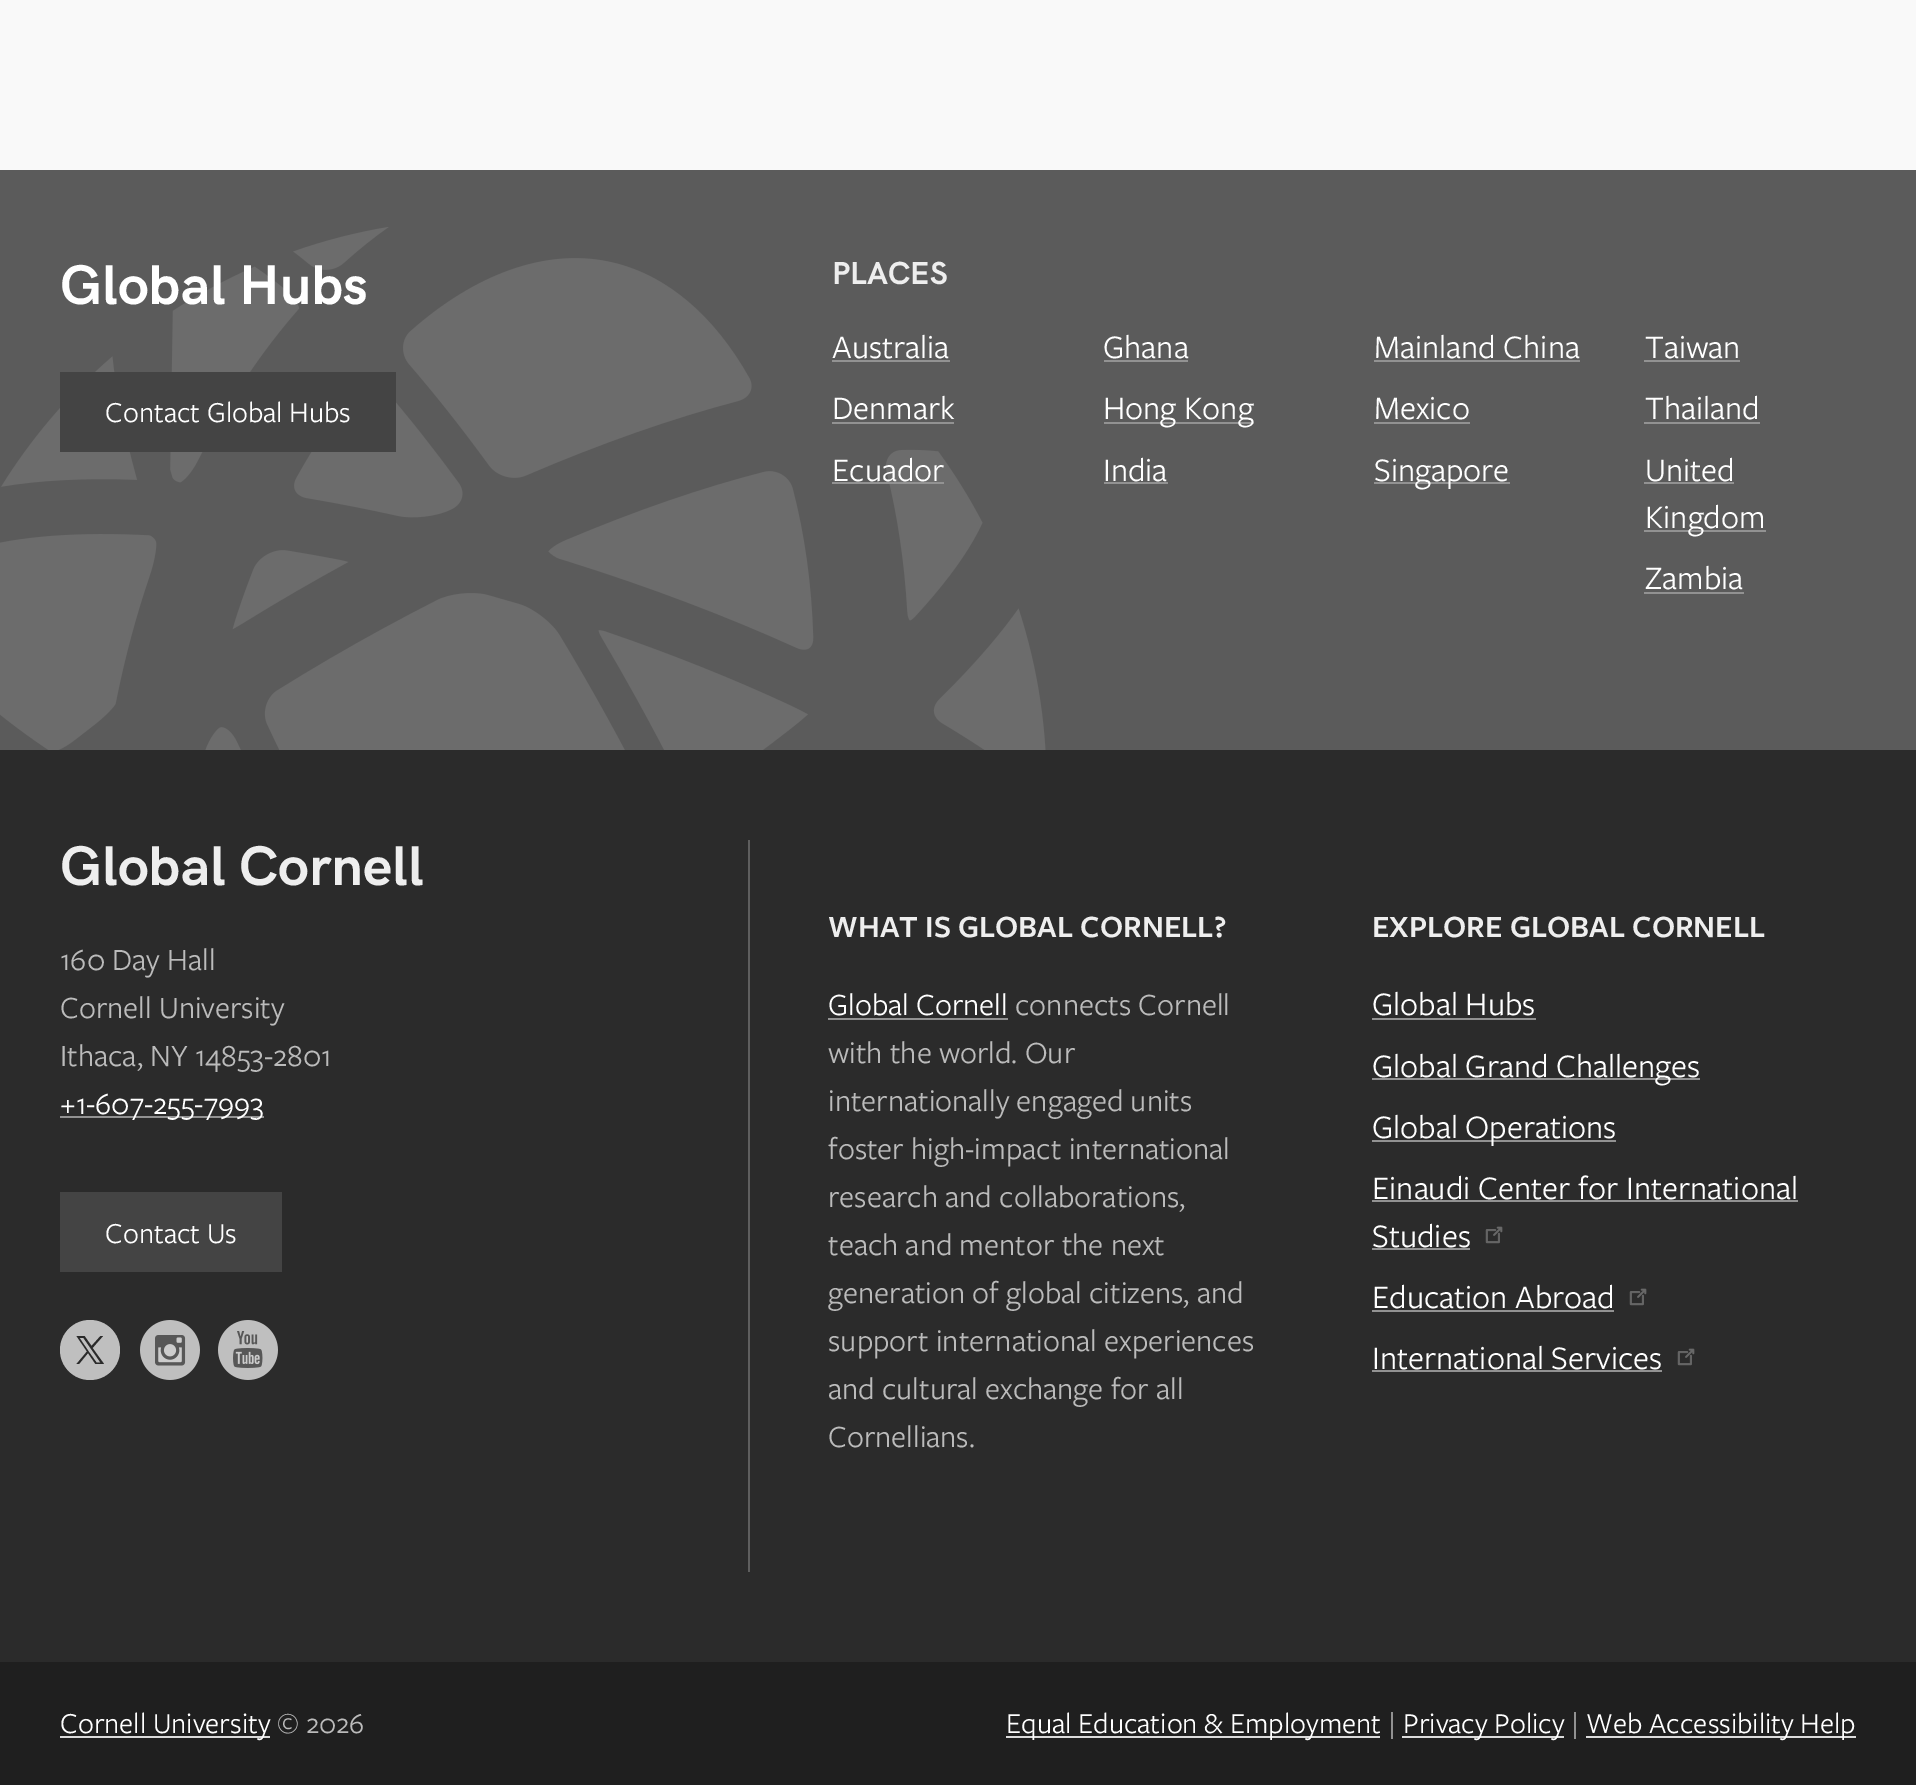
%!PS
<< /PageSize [1916 1785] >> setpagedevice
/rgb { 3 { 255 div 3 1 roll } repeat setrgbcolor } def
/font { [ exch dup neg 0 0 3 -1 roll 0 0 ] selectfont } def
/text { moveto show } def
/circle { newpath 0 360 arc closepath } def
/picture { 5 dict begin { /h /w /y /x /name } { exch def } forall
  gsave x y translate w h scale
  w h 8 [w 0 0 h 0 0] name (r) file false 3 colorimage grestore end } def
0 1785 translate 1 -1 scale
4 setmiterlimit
249 249 249 rgb
0 0 1916 1785 rectfill
91 91 91 rgb
0 170 1916 580 rectfill
(img_01.rgb) 0 227 1046 523 picture
68 68 68 rgb
60 372 336 80 rectfill
146 146 146 rgb
832 360 118 2 rectfill
832 422 122 2 rectfill
832 482 112 2 rectfill
1104 360 84 2 rectfill
1104 422 150 2 rectfill
1104 482 64 2 rectfill
1374 360 206 2 rectfill
1374 422 96 2 rectfill
1374 482 136 2 rectfill
1644 360 96 2 rectfill
1644 422 116 2 rectfill
1644 482 90 2 rectfill
1644 530 122 2 rectfill
1644 592 100 2 rectfill
43 43 43 rgb
0 750 1916 912 rectfill
94 94 94 rgb
748 840 2 732 rectfill
146 146 146 rgb
60 1116 204 2 rectfill
68 68 68 rgb
60 1192 222 80 rectfill
191 191 191 rgb
90 1350 30 circle fill
(img_02.rgb) 140 1320 60 60 picture
(img_03.rgb) 218 1320 60 60 picture
42 42 42 rgb
92.5 1348 moveto 10.5 -12 rlineto -2.5 0 rlineto -9 10 rlineto -7 -10 rlineto -8 0 rlineto 10.5 15.5 rlineto -10.5 12.5 rlineto 2.5 0 rlineto 9 -11 rlineto 7.5 11 rlineto 8.5 0 rlineto closepath 89 1352 moveto -9.5 -14 rlineto 4 0 rlineto 17 24.5 rlineto -4 0 rlineto closepath fill
146 146 146 rgb
828 1018 180 2 rectfill
1372 1018 164 2 rectfill
1372 1078 328 2 rectfill
1372 1140 244 2 rectfill
1372 1200 426 2 rectfill
1372 1248 98 2 rectfill
(img_04.rgb) 1485 1226 18 18 picture
1372 1310 242 2 rectfill
(img_04.rgb) 1629 1288 18 18 picture
1372 1370 290 2 rectfill
(img_04.rgb) 1677 1348 18 18 picture
31 31 31 rgb
0 1662 1916 123 rectfill
219 219 219 rgb
60 1736 210 2 rectfill
1006 1736 374 2 rectfill
1402 1736 162 2 rectfill
1586 1736 270 2 rectfill
/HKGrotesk-Bold 56 font
255 255 255 rgb
(Global Hubs) 60 304 text
/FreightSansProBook-Regular 30 font
(Contact Global Hubs) 105 422 text
/HKGrotesk-Bold 32 font
238 238 238 rgb
(PLACES) 832 284 text
/FreightSansProBook-Regular 34 font
255 255 255 rgb
(Australia) 832 358 text
(Denmark) 832 419 text
(Ecuador) 832 481 text
(Ghana) 1103 358 text
(Hong Kong) 1103 419 text
(India) 1103 481 text
(Mainland China) 1374 358 text
(Mexico) 1374 419 text
(Singapore) 1374 481 text
(Taiwan) 1645 358 text
(Thailand) 1645 419 text
(United) 1645 481 text
(Kingdom) 1645 528 text
(Zambia) 1645 589 text
/HKGrotesk-Bold 56 font
238 238 238 rgb
(Global Cornell) 60 885 text
/FreightSansProBook-Regular 32 font
187 187 187 rgb
(160 Day Hall) 60 970 text
(Cornell University) 60 1018 text
(Ithaca, NY 14853-2801) 60 1066 text
255 255 255 rgb
(+1-607-255-7993) 60 1114 text
/FreightSansProBook-Regular 30 font
(Contact Us) 105 1243 text
/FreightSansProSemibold-SemiBold 32 font
238 238 238 rgb
(WHAT IS GLOBAL CORNELL?) 828 937 text
/FreightSansProBook-Regular 32 font
255 255 255 rgb
(Global Cornell) 828 1015 text
187 187 187 rgb
(connects Cornell) 1015 1015 text
(with the world. Our) 828 1063 text
(internationally engaged units) 828 1111 text
(foster high-impact international) 828 1159 text
(research and collaborations,) 828 1207 text
(teach and mentor the next) 828 1255 text
(generation of global citizens, and) 828 1303 text
(support international experiences) 828 1351 text
(and cultural exchange for all) 828 1399 text
(Cornellians.) 828 1447 text
/FreightSansProSemibold-SemiBold 32 font
238 238 238 rgb
(EXPLORE GLOBAL CORNELL) 1372 937 text
/FreightSansProBook-Regular 34 font
255 255 255 rgb
(Global Hubs) 1372 1015 text
(Global Grand Challenges) 1372 1077 text
(Global Operations) 1372 1138 text
(Einaudi Center for International) 1372 1199 text
(Studies) 1372 1247 text
(Education Abroad) 1372 1308 text
(International Services) 1372 1369 text
/FreightSansProBook-Regular 30 font
(Cornell University) 60 1733 text
187 187 187 rgb
(© 2026) 277 1733 text
255 255 255 rgb
(Equal Education & Employment) 1006 1733 text
187 187 187 rgb
(|) 1388 1733 text
255 255 255 rgb
(Privacy Policy) 1403 1733 text
187 187 187 rgb
(|) 1571 1733 text
255 255 255 rgb
(Web Accessibility Help) 1586 1733 text
showpage
